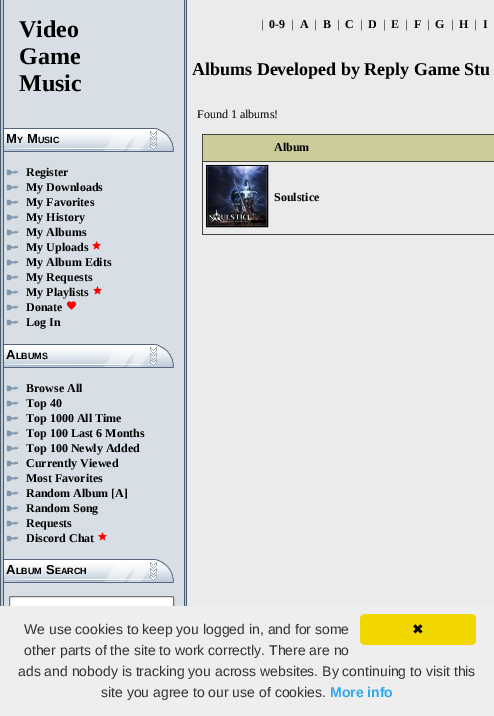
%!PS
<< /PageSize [494 716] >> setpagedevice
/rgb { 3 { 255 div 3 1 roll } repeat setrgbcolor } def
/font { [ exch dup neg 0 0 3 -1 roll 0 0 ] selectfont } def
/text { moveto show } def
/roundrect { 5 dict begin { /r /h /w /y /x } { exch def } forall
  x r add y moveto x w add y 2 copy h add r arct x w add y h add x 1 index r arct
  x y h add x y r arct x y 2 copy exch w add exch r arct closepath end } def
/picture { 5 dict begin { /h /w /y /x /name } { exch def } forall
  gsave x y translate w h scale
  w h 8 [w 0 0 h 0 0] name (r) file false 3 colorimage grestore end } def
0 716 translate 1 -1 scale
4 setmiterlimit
188 203 210 rgb
0 0 494 716 rectfill
75 91 110 rgb
0 0 1 606 rectfill
215 222 229 rgb
4 0 180 606 rectfill
75 91 110 rgb
184 0 1 606 rectfill
3 0 1 606 rectfill
(img_01.rgb) 4 128 170 24 picture
(img_02.rgb) 6 169 12 7 picture
(img_02.rgb) 6 184 12 7 picture
(img_02.rgb) 6 199 12 7 picture
(img_02.rgb) 6 214 12 7 picture
(img_02.rgb) 6 229 12 7 picture
(img_02.rgb) 6 244 12 7 picture
(img_03.rgb) 92 241 9 9 picture
(img_02.rgb) 6 259 12 7 picture
(img_02.rgb) 6 274 12 7 picture
(img_02.rgb) 6 289 12 7 picture
(img_03.rgb) 93 286 9 9 picture
(img_02.rgb) 6 304 12 7 picture
(img_04.rgb) 66 301 11 9 picture
(img_02.rgb) 6 319 12 7 picture
(img_01.rgb) 4 344 170 24 picture
(img_02.rgb) 6 385 12 7 picture
(img_02.rgb) 6 400 12 7 picture
(img_02.rgb) 6 415 12 7 picture
(img_02.rgb) 6 430 12 7 picture
(img_02.rgb) 6 445 12 7 picture
(img_02.rgb) 6 460 12 7 picture
(img_02.rgb) 6 475 12 7 picture
(img_02.rgb) 6 490 12 7 picture
(img_02.rgb) 6 505 12 7 picture
(img_02.rgb) 6 520 12 7 picture
(img_02.rgb) 6 535 12 7 picture
(img_03.rgb) 98 532 9 9 picture
(img_01.rgb) 4 559 170 24 picture
255 255 255 rgb
9.5 596.5 164 20 1.5 roundrect gsave fill grestore
118 118 118 rgb
stroke
235 235 235 rgb
187 0 307 606 rectfill
75 91 110 rgb
186 0 1 606 rectfill
68 68 68 rgb
202 134 292 1 rectfill
202 234 292 1 rectfill
202 134 1 101 rectfill
204 204 153 rgb
203 135 291 26 rectfill
68 68 68 rgb
202 161 292 1 rectfill
0 0 0 rgb
206.5 165.5 61 61 rectstroke
(img_05.rgb) 207 166 60 60 picture
238 238 238 rgb
0 606 494 110 rectfill
241 214 0 rgb
360 614 116 31 5 roundrect fill
/LiberationSerif-Bold 24 font
0 0 0 rgb
(Video) 19 37 text
(Game) 19 64 text
(Music) 19 91 text
/LiberationSans-Bold 13 font
(M) 6 143 text
/LiberationSans-Bold 9 font
(Y) 17 143 text
/LiberationSans-Bold 13 font
(M) 27 143 text
/LiberationSans-Bold 9 font
(USIC) 38 143 text
/LiberationSerif-Bold 12 font
(Register) 26 176 text
(My Downloads) 26 191 text
(My Favorites) 26 206 text
(My History) 26 221 text
(My Albums) 26 236 text
(My Uploads) 26 251 text
(My Album Edits) 26 266 text
(My Requests) 26 281 text
(My Playlists) 26 296 text
(Donate) 26 311 text
(Log In) 26 326 text
/LiberationSans-Bold 13 font
(A) 6 359 text
/LiberationSans-Bold 9 font
(LBUMS) 16 359 text
/LiberationSerif-Bold 12 font
(Browse All) 26 392 text
(Top 40) 26 407 text
(Top 1000 All Time) 26 422 text
(Top 100 Last 6 Months) 26 437 text
(Top 100 Newly Added) 26 452 text
(Currently Viewed) 26 467 text
(Most Favorites) 26 482 text
(Random Album [A]) 26 497 text
(Random Song) 26 512 text
(Requests) 26 527 text
(Discord Chat) 26 542 text
/LiberationSans-Bold 13 font
(A) 6 574 text
/LiberationSans-Bold 9 font
(LBUM) 16 574 text
/LiberationSans-Bold 13 font
(S) 46 574 text
/LiberationSans-Bold 9 font
(EARCH) 55 574 text
/LiberationSerif-Regular 12 font
(|) 261 28 text
/LiberationSerif-Bold 12 font
(0-9) 269 28 text
/LiberationSerif-Regular 12 font
(|) 291 28 text
/LiberationSerif-Bold 12 font
(A) 300 28 text
/LiberationSerif-Regular 12 font
(|) 314 28 text
/LiberationSerif-Bold 12 font
(B) 323 28 text
/LiberationSerif-Regular 12 font
(|) 337 28 text
/LiberationSerif-Bold 12 font
(C) 345 28 text
/LiberationSerif-Regular 12 font
(|) 360 28 text
/LiberationSerif-Bold 12 font
(D) 368 28 text
/LiberationSerif-Regular 12 font
(|) 383 28 text
/LiberationSerif-Bold 12 font
(E) 391 28 text
/LiberationSerif-Regular 12 font
(|) 405 28 text
/LiberationSerif-Bold 12 font
(F) 414 28 text
/LiberationSerif-Regular 12 font
(|) 427 28 text
/LiberationSerif-Bold 12 font
(G) 435 28 text
/LiberationSerif-Regular 12 font
(|) 451 28 text
/LiberationSerif-Bold 12 font
(H) 459 28 text
/LiberationSerif-Regular 12 font
(|) 474 28 text
/LiberationSerif-Bold 12 font
(I) 483 28 text
/LiberationSerif-Bold 18 font
(Albums Developed by Reply Game Stu) 192 75 text
/LiberationSerif-Regular 12 font
(Found 1 albums!) 197 118 text
/LiberationSerif-Bold 12 font
(Album) 274 151 text
(Soulstice) 274 201 text
/LiberationSans-Regular 14 font
51 51 51 rgb
(We use cookies to keep you logged in, and for some) 24 634 text
(other parts of the site to work correctly. There are no) 24 655 text
(ads and nobody is tracking you across websites. By continuing to visit this) 18 676 text
(site you agree to our use of cookies.) 101 697 text
/LiberationSans-Bold 14 font
49 168 240 rgb
(More info) 330 697 text
/DejaVuSans-Regular 14 font
0 0 0 rgb
(✖) 412 634 text
showpage
